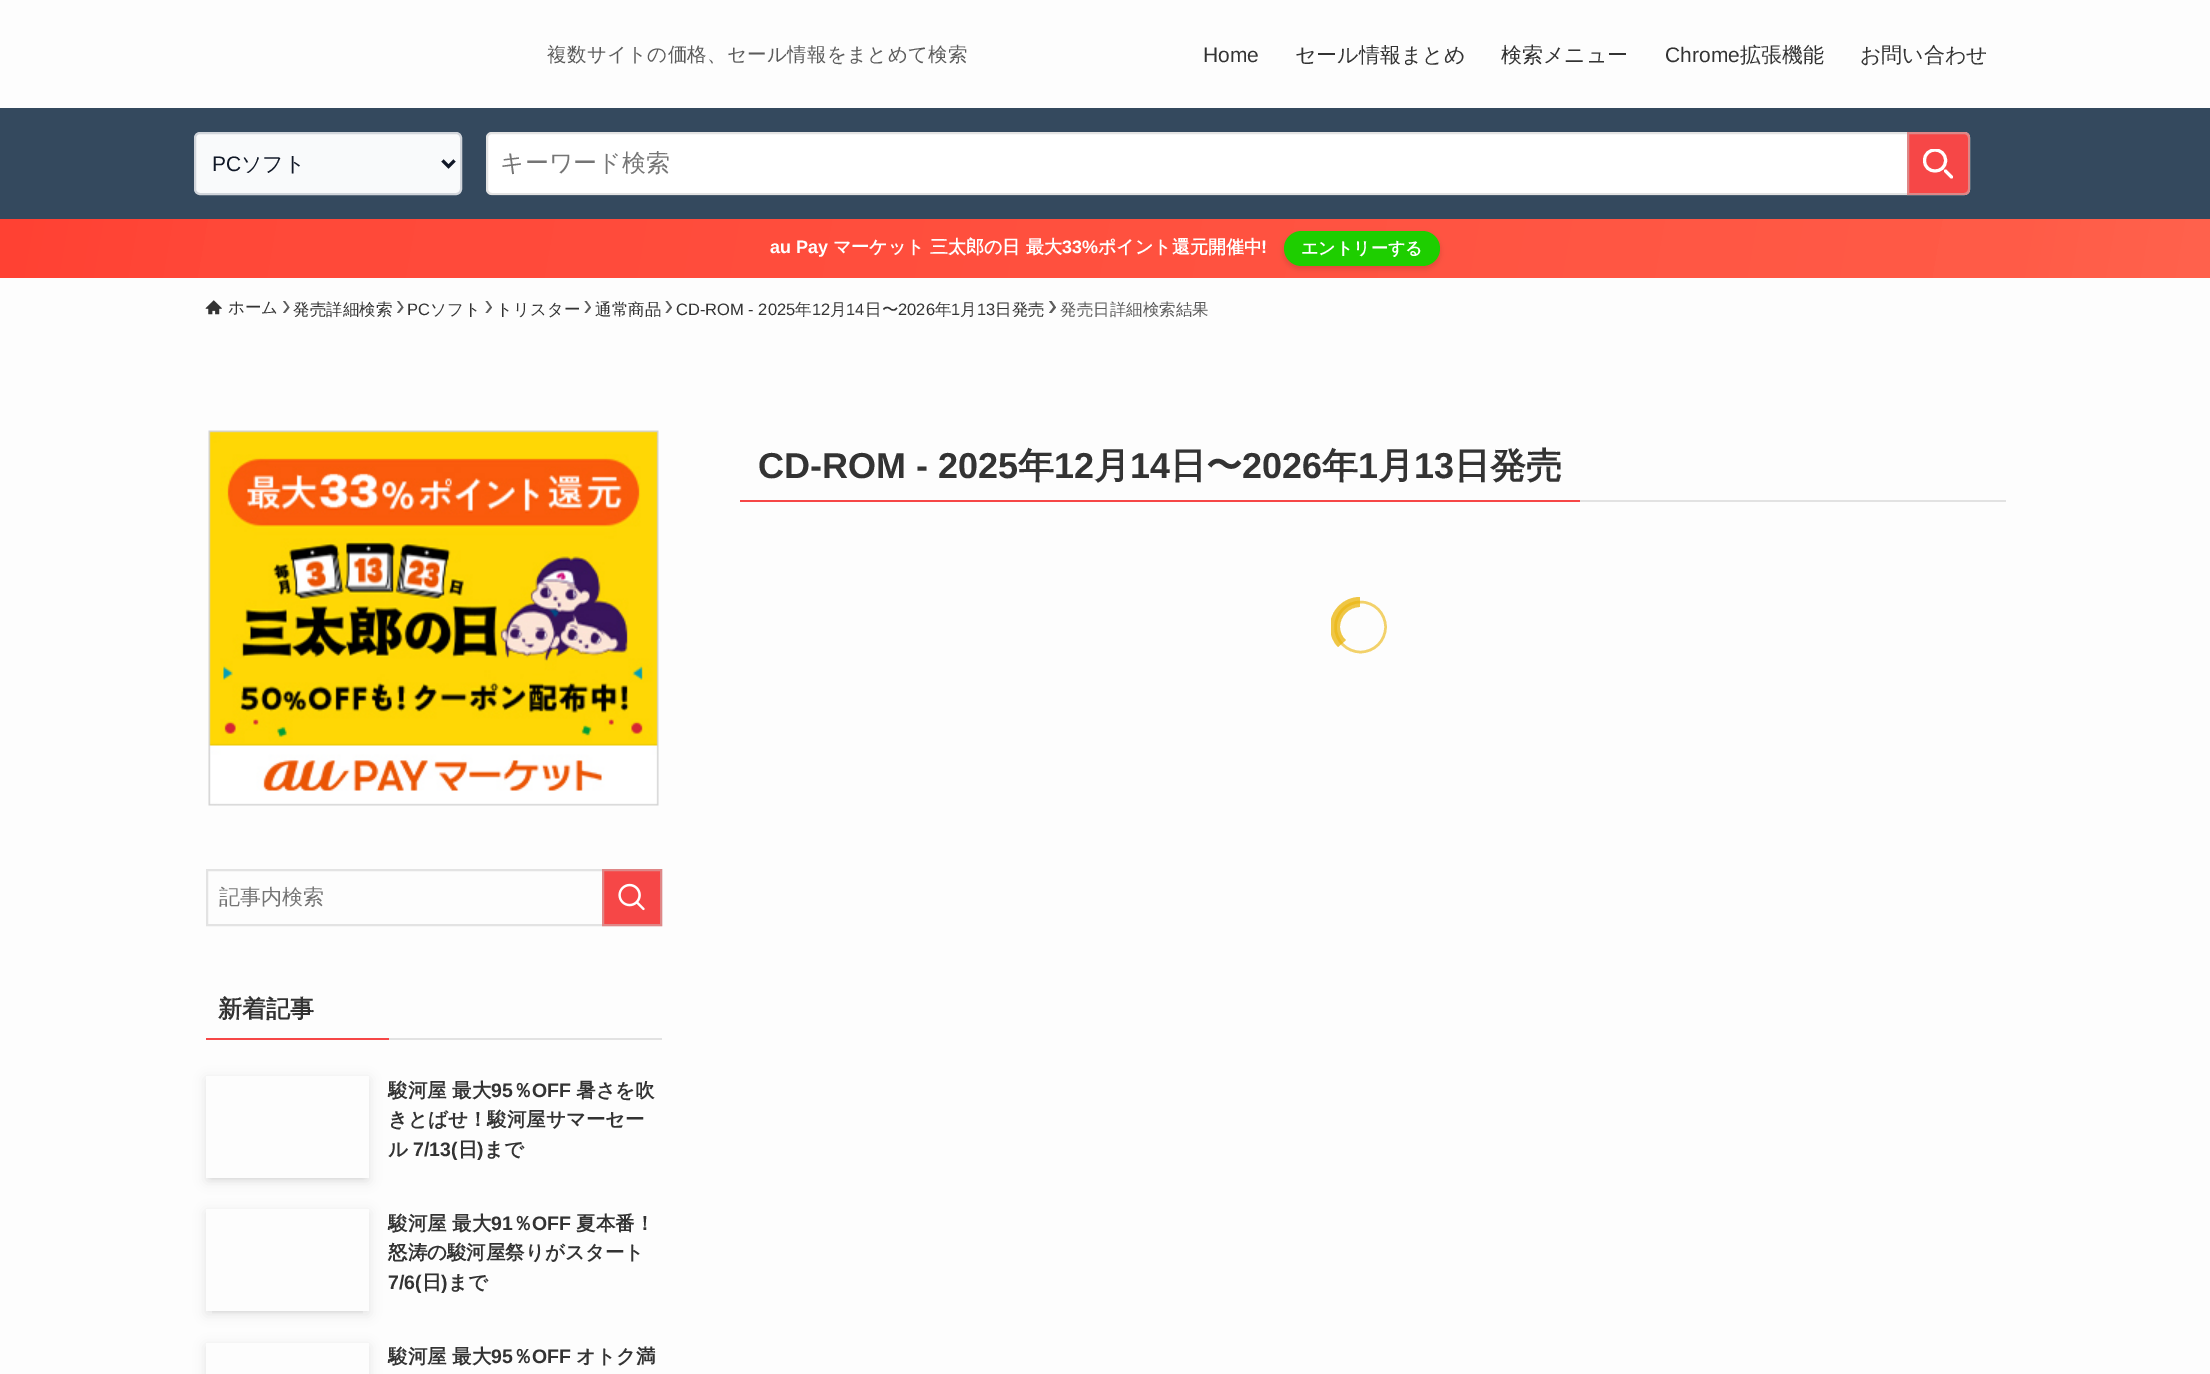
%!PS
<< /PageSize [2210 1374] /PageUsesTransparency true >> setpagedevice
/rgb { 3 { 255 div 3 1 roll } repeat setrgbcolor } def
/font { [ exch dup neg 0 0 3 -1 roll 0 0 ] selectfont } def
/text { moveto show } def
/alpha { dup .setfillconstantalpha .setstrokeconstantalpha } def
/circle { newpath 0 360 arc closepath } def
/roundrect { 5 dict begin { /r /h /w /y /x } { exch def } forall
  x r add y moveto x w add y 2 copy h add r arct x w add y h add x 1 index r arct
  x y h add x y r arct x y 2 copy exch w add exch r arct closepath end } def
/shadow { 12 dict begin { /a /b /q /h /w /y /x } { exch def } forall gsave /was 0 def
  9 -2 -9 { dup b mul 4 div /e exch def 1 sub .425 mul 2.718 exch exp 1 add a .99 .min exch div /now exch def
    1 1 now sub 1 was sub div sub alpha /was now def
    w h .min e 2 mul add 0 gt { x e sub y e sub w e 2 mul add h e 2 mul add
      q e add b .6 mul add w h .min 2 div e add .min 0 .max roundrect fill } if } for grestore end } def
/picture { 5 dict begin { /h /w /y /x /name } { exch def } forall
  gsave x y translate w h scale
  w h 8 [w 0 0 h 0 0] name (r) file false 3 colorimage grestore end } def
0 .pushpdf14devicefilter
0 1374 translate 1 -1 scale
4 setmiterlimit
253 253 253 rgb
0 0 2210 1374 rectfill
52 73 94 rgb
0 108 2210 111 rectfill
249 250 251 rgb
195 133 266 61 5 roundrect gsave fill grestore
209 213 219 rgb
2 setlinewidth
stroke
17 24 39 rgb
3 setlinewidth
442.5 160.5 moveto 6 6 rlineto 6 -6 rlineto stroke
255 255 255 rgb
486 132 1484 63 6 roundrect fill
0.5 alpha
199 199 199 rgb
2 setlinewidth
487 133 1482 61 5 roundrect stroke
1 alpha
246 71 71 rgb
1907 132 moveto 57 0 rlineto 3.5 0 6 2.5 6 6 rcurveto 0 51 rlineto 0 3.5 -2.5 6 -6 6 rcurveto -57 0 rlineto closepath fill
0.5 alpha
199 199 199 rgb
1908 133 moveto 56 0 rlineto 3 0 5 2 5 5 rcurveto 0 51 rlineto 0 3 -2 5 -5 5 rcurveto -56 0 rlineto closepath stroke
gsave
1923 149 30 30 rectclip
1 alpha
255 255 255 rgb
3 setlinewidth
1 setlinecap
1 setlinejoin
1951.5 177 moveto -6 -6 rlineto 1945.5 160.5 moveto 0 14 -21 14 -21 0 rcurveto 0 -14 21 -14 21 0 rcurveto closepath stroke
grestore
1 alpha
gsave 0 219 moveto 2210 0 rlineto 0 59 rlineto -2210 0 rlineto closepath clip newpath
<< /ShadingType 2 /ColorSpace /DeviceRGB /Coords [28 58 2183 438] /Extend [true true] /Function << /FunctionType 3 /Domain [0 1] /Functions [<< /FunctionType 2 /Domain [0 1] /C0 [1 0.255 0.2] /C1 [1 0.282 0.22] /N 1 >> << /FunctionType 2 /Domain [0 1] /C0 [1 0.282 0.22] /C1 [1 0.357 0.278] /N 1 >> << /FunctionType 2 /Domain [0 1] /C0 [1 0.357 0.278] /C1 [1 0.384 0.302] /N 1 >>] /Bounds [0.1 0.9] /Encode [0 1 0 1 0 1] >> >> shfill grestore
0 0 0 rgb
1284 234 156 35 17.5 3 0.12 shadow
30 206 0 rgb
1284 231 156 35 17.5 roundrect fill
(img_01.rgb) 205 300 17 15 picture
91 91 91 rgb
285 301 moveto -2 0 rlineto 4.5 6 rlineto -4.5 6 rlineto 2 0 rlineto 4.5 -5.5 rlineto closepath fill
399 301 moveto -2 0 rlineto 4.5 6 rlineto -4.5 6 rlineto 2 0 rlineto 4.5 -5.5 rlineto closepath fill
487.5 301 moveto -2 0 rlineto 4.5 6 rlineto -4.5 6 rlineto 2 0 rlineto 4.5 -5.5 rlineto closepath fill
586.5 301 moveto -2 0 rlineto 4.5 6 rlineto -4.5 6 rlineto 2 0 rlineto 4.5 -5.5 rlineto closepath fill
667.5 301 moveto -2 0 rlineto 4.5 6 rlineto -4.5 6 rlineto 2 0 rlineto 4.5 -5.5 rlineto closepath fill
1051.5 301 moveto -2.5 0 rlineto 4.5 6 rlineto -4.5 6 rlineto 2.5 0 rlineto 4.5 -5.5 rlineto closepath fill
226 226 226 rgb
1580 500 426 2 rectfill
246 71 71 rgb
740 500 840 2 rectfill
242 209 106 rgb
2.5 setlinewidth
1360.5 627 25 circle stroke
gsave
1331 597 60 60 rectclip
0.75 alpha
234 179 8 rgb
1340 627 moveto 0 -11 9 -20 20 -20 rcurveto 0 -10 rlineto -16 0 -30 13 -30 30 rcurveto closepath 1346 640 moveto -4 -3 -6 -8 -6 -13 rcurveto -10 0 rlineto 0 8 3 15 8 20 rcurveto closepath fill
grestore
(img_02.rgb) 208 430 451 376 picture
227 227 227 rgb
2 setlinewidth
207 870 454 55 rectstroke
246 71 71 rgb
603 870 moveto 58 0 rlineto 0 55 rlineto -58 0 rlineto closepath gsave fill grestore
223 135 135 rgb
stroke
(img_03.rgb) 618 883 27 28 picture
246 71 71 rgb
206 1038 183 2 rectfill
226 226 226 rgb
389 1038 273 2 rectfill
gsave
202 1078 moveto 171 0 rlineto 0 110 rlineto -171 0 rlineto closepath 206 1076 moveto 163 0 rlineto 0 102 rlineto -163 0 rlineto closepath eoclip newpath
0 0 0 rgb
212 1088 151 90 0 3 0.1 shadow
grestore
gsave
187 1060 moveto 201 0 rlineto 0 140 rlineto -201 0 rlineto closepath 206 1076 moveto 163 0 rlineto 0 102 rlineto -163 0 rlineto closepath eoclip newpath
0 0 0 rgb
206 1079 163 102 0 6 0.1 shadow
grestore
gsave
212 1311 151 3 rectclip
0 0 0 rgb
212 1221 151 90 0 3 0.1 shadow
grestore
gsave
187 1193 moveto 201 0 rlineto 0 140 rlineto -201 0 rlineto closepath 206 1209 moveto 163 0 rlineto 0 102 rlineto -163 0 rlineto closepath eoclip newpath
0 0 0 rgb
206 1212 163 102 0 6 0.1 shadow
grestore
gsave
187 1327 moveto 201 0 rlineto 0 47 rlineto -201 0 rlineto closepath 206 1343 moveto 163 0 rlineto 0 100 rlineto -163 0 rlineto closepath eoclip newpath
0 0 0 rgb
206 1346 163 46 0 6 0.1 shadow
grestore
/WenQuanYiZenHei-Medium 19.5 font
91 91 91 rgb
547 61 moveto 0.3 0 (複数サイトの価格、セール情報をまとめて検索) ashow
/LiberationSans-Regular 21 font
51 51 51 rgb
(Home) 1203 62 text
/WenQuanYiZenHei-Medium 21 font
(セール情報まとめ) 1295 62 text
(検索メニュー) 1501 62 text
/LiberationSans-Regular 21 font
(Chrome) 1665 62 text
/WenQuanYiZenHei-Medium 21 font
(拡張機能) 1740 62 text
(お問い合わせ) 1860 62 text
/LiberationSans-Regular 21 font
17 24 39 rgb
(PC) 212 171 text
/WenQuanYiZenHei-Medium 21 font
(ソフト) 241 171 text
/WenQuanYiZenHei-Medium 24 font
117 117 117 rgb
(キーワード検索) 500 171 text
/LiberationSans-Bold 18 font
255 255 255 rgb
(au Pay) 770 253 text
/WenQuanYiZenHei-Bold 18 font
(マーケット) 833 253 text
(三太郎の日) 930 253 text
(最大) 1026 253 text
/LiberationSans-Bold 18 font
(33%) 1062 253 text
/WenQuanYiZenHei-Bold 18 font
(ポイント還元開催中) 1098 253 text
/LiberationSans-Bold 18 font
(!) 1261 253 text
/WenQuanYiZenHei-Bold 17 font
(エントリーする) 1301 254 text
/WenQuanYiZenHei-Medium 16.5 font
51 51 51 rgb
(ホーム) 228 313 text
(発売詳細検索) 293 315 text
/LiberationSans-Regular 16.5 font
(PC) 407 315 text
/WenQuanYiZenHei-Medium 16.5 font
(ソフト) 430 315 text
(トリスター) 496 315 text
(通常商品) 595 315 text
/LiberationSans-Regular 16.5 font
(CD-ROM - 2025) 676 315 text
/WenQuanYiZenHei-Medium 16.5 font
(年) 795 315 text
/LiberationSans-Regular 16.5 font
(12) 812 315 text
/WenQuanYiZenHei-Medium 16.5 font
(月) 830 315 text
/LiberationSans-Regular 16.5 font
(14) 846 315 text
/WenQuanYiZenHei-Medium 16.5 font
(日〜) 865 315 text
/LiberationSans-Regular 16.5 font
(2026) 898 315 text
/WenQuanYiZenHei-Medium 16.5 font
(年) 935 315 text
/LiberationSans-Regular 16.5 font
(1) 951 315 text
/WenQuanYiZenHei-Medium 16.5 font
(月) 960 315 text
/LiberationSans-Regular 16.5 font
(13) 977 315 text
/WenQuanYiZenHei-Medium 16.5 font
(日発売) 995 315 text
91 91 91 rgb
(発売日詳細検索結果) 1060 315 text
/LiberationSans-Bold 36 font
51 51 51 rgb
(CD-ROM - 2025) 758 478 text
/WenQuanYiZenHei-Bold 36 font
(年) 1018 478 text
/LiberationSans-Bold 36 font
(12) 1054 478 text
/WenQuanYiZenHei-Bold 36 font
(月) 1094 478 text
/LiberationSans-Bold 36 font
(14) 1130 478 text
/WenQuanYiZenHei-Bold 36 font
(日〜) 1170 478 text
/LiberationSans-Bold 36 font
(2026) 1242 478 text
/WenQuanYiZenHei-Bold 36 font
(年) 1322 478 text
/LiberationSans-Bold 36 font
(1) 1358 478 text
/WenQuanYiZenHei-Bold 36 font
(月) 1378 478 text
/LiberationSans-Bold 36 font
(13) 1414 478 text
/WenQuanYiZenHei-Bold 36 font
(日発売) 1454 478 text
/WenQuanYiZenHei-Medium 21 font
117 117 117 rgb
(記事内検索) 219 904 text
/WenQuanYiZenHei-Bold 24 font
51 51 51 rgb
(新着記事) 218 1017 text
/WenQuanYiZenHei-Bold 19.5 font
(駿河屋 最大) 388 1097 text
/LiberationSans-Bold 19.5 font
(95) 491 1097 text
/WenQuanYiZenHei-Bold 19.5 font
(％) 513 1097 text
/LiberationSans-Bold 19.5 font
(OFF) 532 1097 text
/WenQuanYiZenHei-Bold 19.5 font
(暑さを吹) 576 1097 text
(きとばせ！駿河屋サマーセー) 388 1126 text
(ル) 388 1156 text
/LiberationSans-Bold 19.5 font
(7/13\() 413 1156 text
/WenQuanYiZenHei-Bold 19.5 font
(日) 458 1156 text
/LiberationSans-Bold 19.5 font
(\)) 477 1156 text
/WenQuanYiZenHei-Bold 19.5 font
(まで) 484 1156 text
(駿河屋 最大) 388 1230 text
/LiberationSans-Bold 19.5 font
(91) 491 1230 text
/WenQuanYiZenHei-Bold 19.5 font
(％) 513 1230 text
/LiberationSans-Bold 19.5 font
(OFF) 532 1230 text
/WenQuanYiZenHei-Bold 19.5 font
(夏本番！) 576 1230 text
(怒涛の駿河屋祭りがスタート) 388 1259 text
/LiberationSans-Bold 19.5 font
(7/6\() 388 1289 text
/WenQuanYiZenHei-Bold 19.5 font
(日) 422 1289 text
/LiberationSans-Bold 19.5 font
(\)) 441 1289 text
/WenQuanYiZenHei-Bold 19.5 font
(まで) 448 1289 text
(駿河屋 最大) 388 1363 text
/LiberationSans-Bold 19.5 font
(95) 491 1363 text
/WenQuanYiZenHei-Bold 19.5 font
(％) 513 1363 text
/LiberationSans-Bold 19.5 font
(OFF) 532 1363 text
/WenQuanYiZenHei-Bold 19.5 font
(オトク満) 576 1363 text
.poppdf14devicefilter showpage
